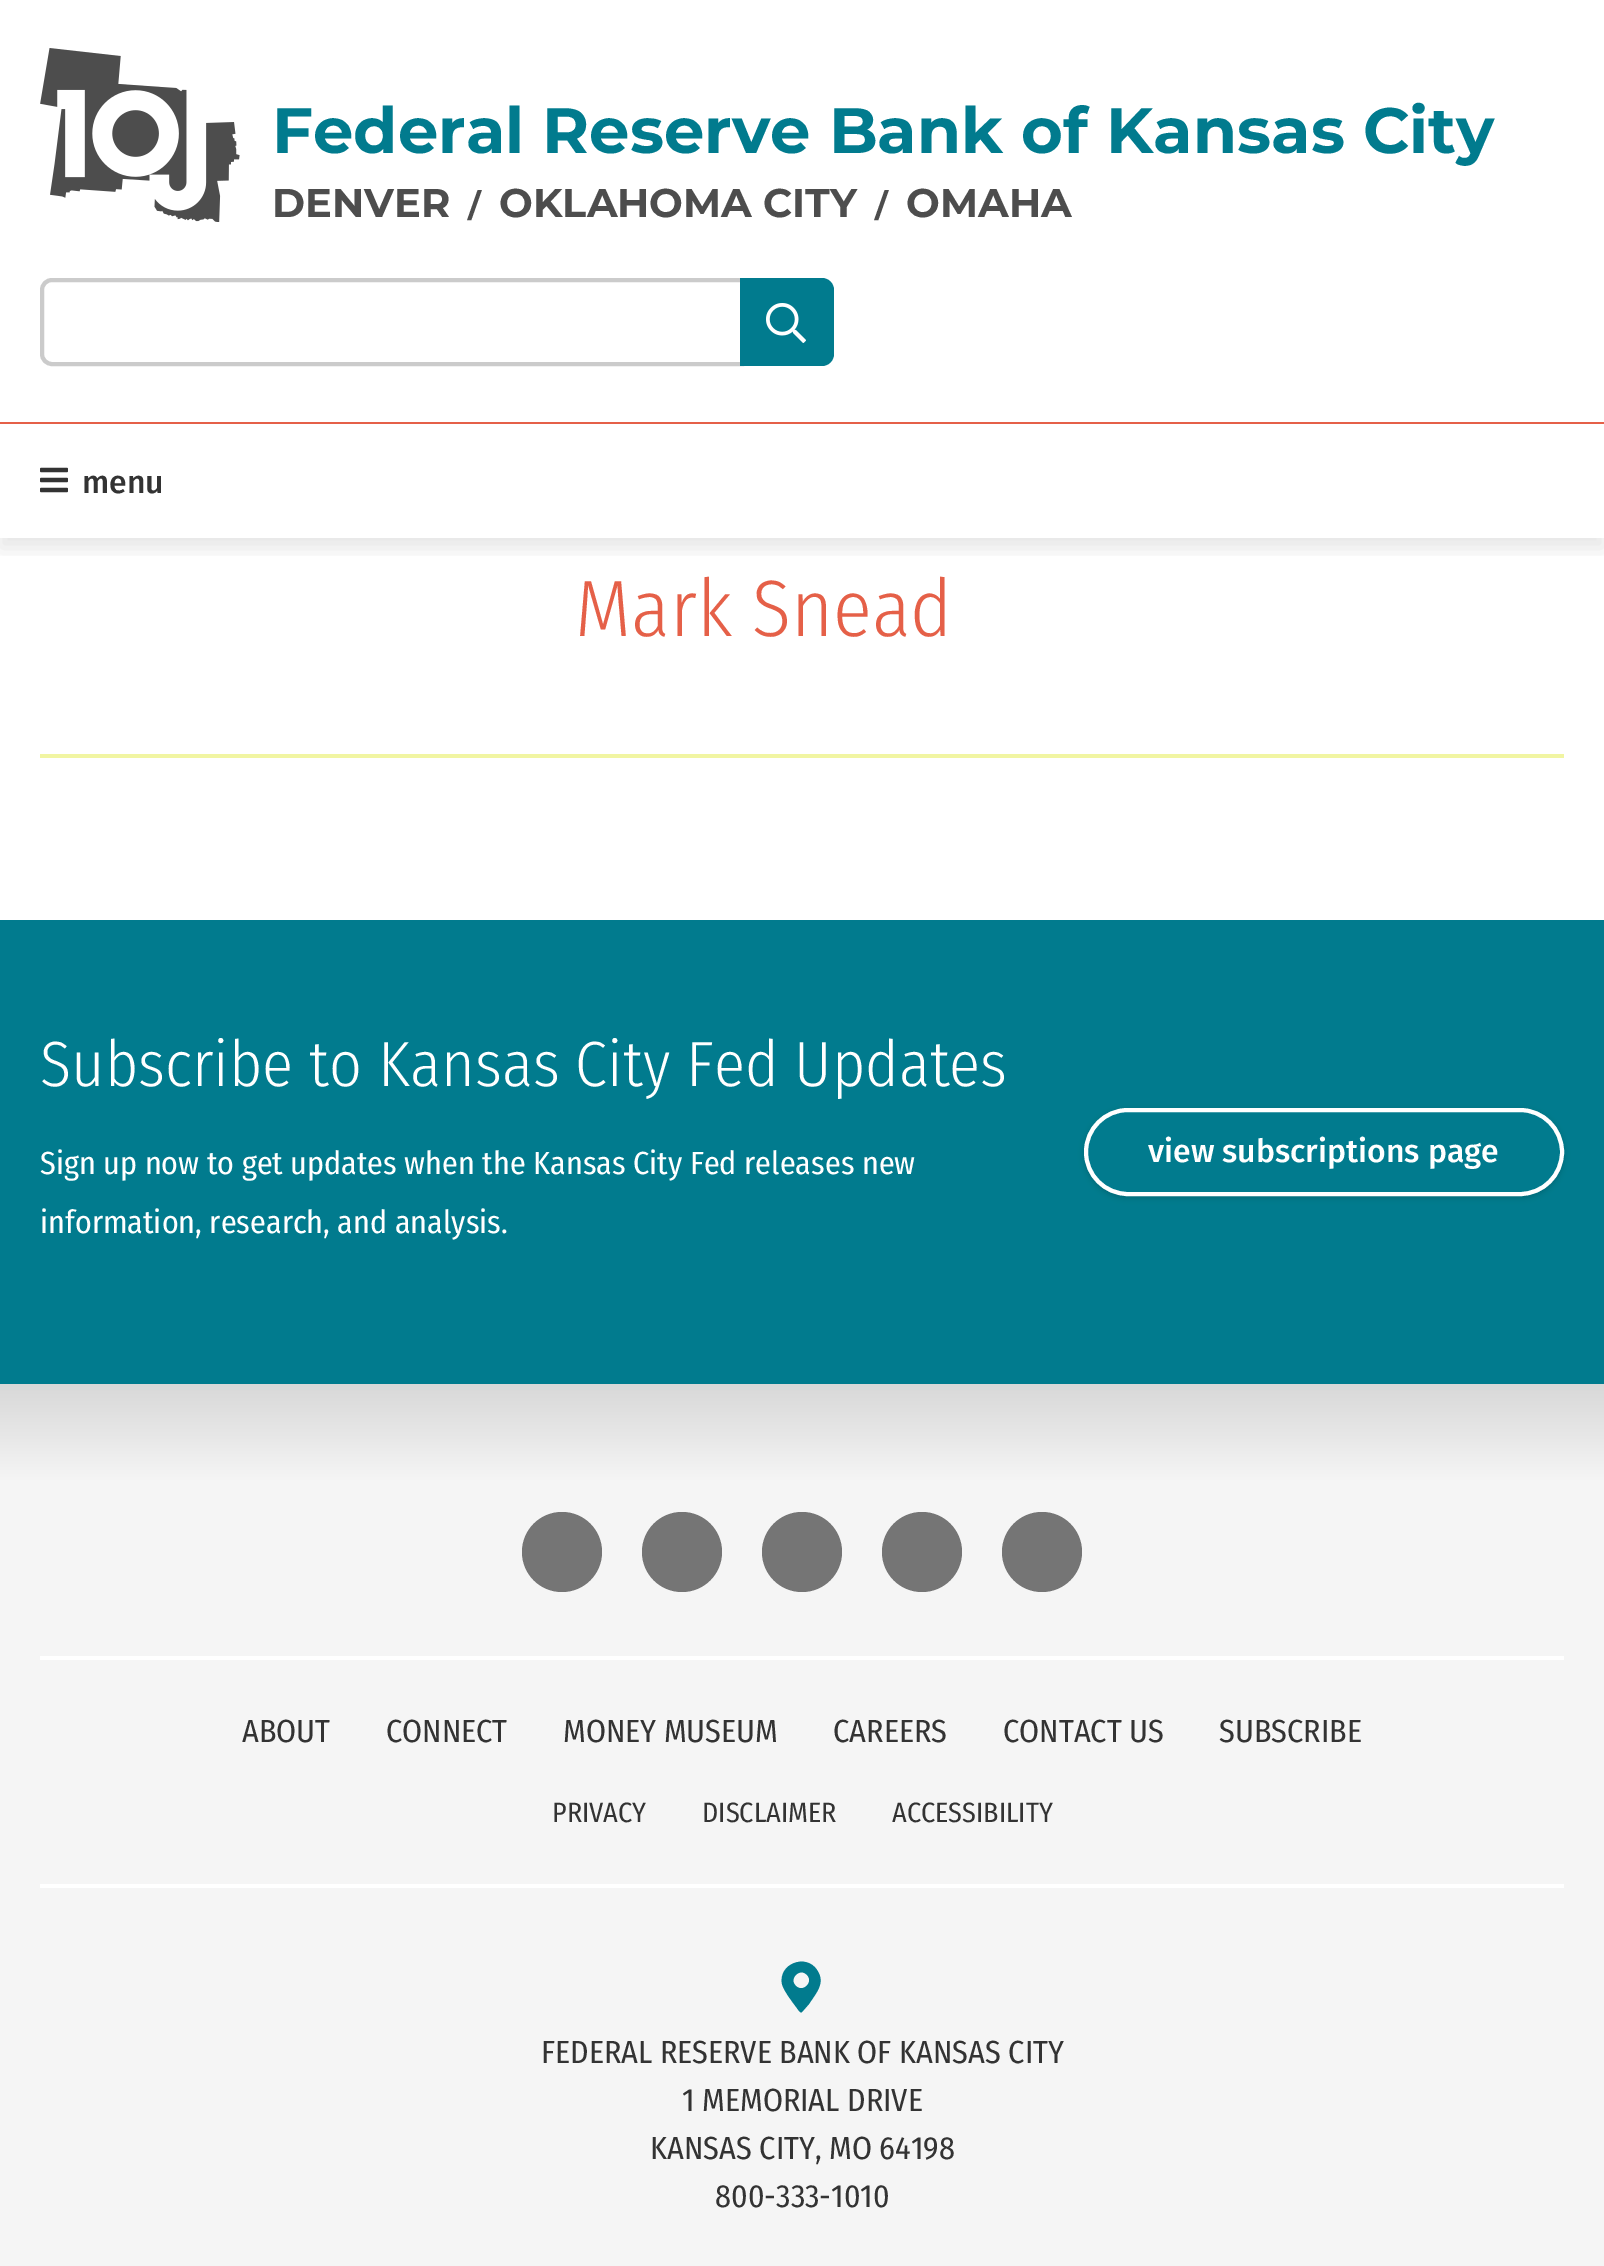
%!PS
<< /PageSize [1604 2266] /PageUsesTransparency true >> setpagedevice
/rgb { 3 { 255 div 3 1 roll } repeat setrgbcolor } def
/font { [ exch dup neg 0 0 3 -1 roll 0 0 ] selectfont } def
/text { moveto show } def
/alpha { dup .setfillconstantalpha .setstrokeconstantalpha } def
/circle { newpath 0 360 arc closepath } def
/roundrect { 5 dict begin { /r /h /w /y /x } { exch def } forall
  x r add y moveto x w add y 2 copy h add r arct x w add y h add x 1 index r arct
  x y h add x y r arct x y 2 copy exch w add exch r arct closepath end } def
/shadow { 12 dict begin { /a /b /q /h /w /y /x } { exch def } forall gsave /was 0 def
  9 -2 -9 { dup b mul 4 div /e exch def 1 sub .425 mul 2.718 exch exp 1 add a .99 .min exch div /now exch def
    1 1 now sub 1 was sub div sub alpha /was now def
    w h .min e 2 mul add 0 gt { x e sub y e sub w e 2 mul add h e 2 mul add
      q e add b .6 mul add w h .min 2 div e add .min 0 .max roundrect fill } if } for grestore end } def
/picture { 5 dict begin { /h /w /y /x /name } { exch def } forall
  gsave x y translate w h scale
  w h 8 [w 0 0 h 0 0] name (r) file false 3 colorimage grestore end } def
0 .pushpdf14devicefilter
0 2266 translate 1 -1 scale
4 setmiterlimit
255 255 255 rgb
0 0 1604 2266 rectfill
229 96 72 rgb
0 422 1604 2 rectfill
(img_01.rgb) 40 48 200 174 picture
203 203 203 rgb
4 setlinewidth
52 280 moveto 690 0 rlineto 0 84 rlineto -690 0 rlineto -5.5 0 -10 -4.5 -10 -10 rcurveto 0 -64 rlineto 0 -5.5 4.5 -10 10 -10 rcurveto closepath stroke
1 123 142 rgb
740 278 moveto 82 0 rlineto 6.5 0 12 5.5 12 12 rcurveto 0 64 rlineto 0 6.5 -5.5 12 -12 12 rcurveto -82 0 rlineto closepath fill
(img_02.rgb) 766 303 40 40 picture
gsave
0 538 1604 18 rectclip
0 0 0 rgb
0 434 1604 114 0 10 0.1 shadow
grestore
(img_03.rgb) 40 467 28 26 picture
241 245 162 rgb
40 754 1524 4 rectfill
1 123 142 rgb
0 920 1604 464 rectfill
gsave
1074 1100 moveto 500 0 rlineto 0 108 rlineto -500 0 rlineto closepath 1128 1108 moveto 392 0 rlineto 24.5 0 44 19.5 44 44 rcurveto 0 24.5 -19.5 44 -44 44 rcurveto -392 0 rlineto -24.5 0 -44 -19.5 -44 -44 rcurveto 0 -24.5 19.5 -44 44 -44 rcurveto closepath eoclip newpath
0 0 0 rgb
1084 1110 480 88 44 3 0.16 shadow
grestore
255 255 255 rgb
1086 1110 476 84 42 roundrect stroke
gsave 0 1384 moveto 1604 0 rlineto 0 882 rlineto -1604 0 rlineto closepath clip newpath
<< /ShadingType 2 /ColorSpace /DeviceRGB /Coords [802 1384 802 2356] /Extend [true true] /Function << /FunctionType 3 /Domain [0 1] /Functions [<< /FunctionType 2 /Domain [0 1] /C0 [0.847 0.847 0.847] /C1 [0.961 0.961 0.961] /N 1 >> << /FunctionType 2 /Domain [0 1] /C0 [0.961 0.961 0.961] /C1 [0.961 0.961 0.961] /N 1 >>] /Bounds [0.1] /Encode [0 1 0 1] >> >> shfill grestore
117 117 117 rgb
562 1552 40 circle fill
682 1552 40 circle fill
802 1552 40 circle fill
922 1552 40 circle fill
1042 1552 40 circle fill
255 255 255 rgb
40 1656 1524 4 rectfill
40 1884 1524 4 rectfill
1 123 142 rgb
799 2011 moveto -4 -6 -15 -19 -17 -27 rcurveto -4 -20 24 -31 35 -14 rcurveto 9 13 -1 23 -8 34 rcurveto -7 8 rlineto -1 1 -2 0 -3 -1 rcurveto closepath 796 1986 moveto 7 7 18 -4 11 -11 rcurveto -7 -8 -19 4 -11 11 rcurveto closepath fill
/Montserrat-Bold 64 font
(Federal Reserve Bank of Kansas City) 272 153 text
/Montserrat-Bold 40 font
77 77 77 rgb
(DENVER) 272 217 text
/Montserrat-Bold 32 font
(/) 468 217 text
/Montserrat-Bold 40 font
(OKLAHOMA CITY) 499 217 text
/Montserrat-Bold 32 font
(/) 875 217 text
/Montserrat-Bold 40 font
(OMAHA) 906 217 text
/FiraSans-Medium 32 font
51 51 51 rgb
(menu) 82 493 text
/FiraSansCondensed-Light 80 font
229 96 72 rgb
(Mark Snead) 575 636 text
/FiraSansCondensed-Light 64 font
255 255 255 rgb
(Subscribe to Kansas City Fed Updates) 40 1086 text
/FiraSansCondensed-Regular 32 font
(Sign up now to get updates when the Kansas City Fed releases new) 40 1174 text
(information, research, and analysis.) 40 1233 text
/FiraSans-Medium 32 font
(view subscriptions page) 1148 1162 text
/FiraSansCondensed-Regular 32 font
51 51 51 rgb
(ABOUT) 242 1742 text
(CONNECT) 386 1742 text
(MONEY MUSEUM) 563 1742 text
(CAREERS) 833 1742 text
(CONTACT US) 1003 1742 text
(SUBSCRIBE) 1219 1742 text
/FiraSansCondensed-Regular 28 font
(PRIVACY) 552 1822 text
(DISCLAIMER) 702 1822 text
(ACCESSIBILITY) 892 1822 text
/FiraSansCondensed-Regular 32 font
(FEDERAL RESERVE BANK OF KANSAS CITY) 541 2063 text
(1 MEMORIAL DRIVE) 682 2111 text
(KANSAS CITY, MO 64198) 650 2159 text
(800-333-1010) 715 2207 text
.poppdf14devicefilter showpage
